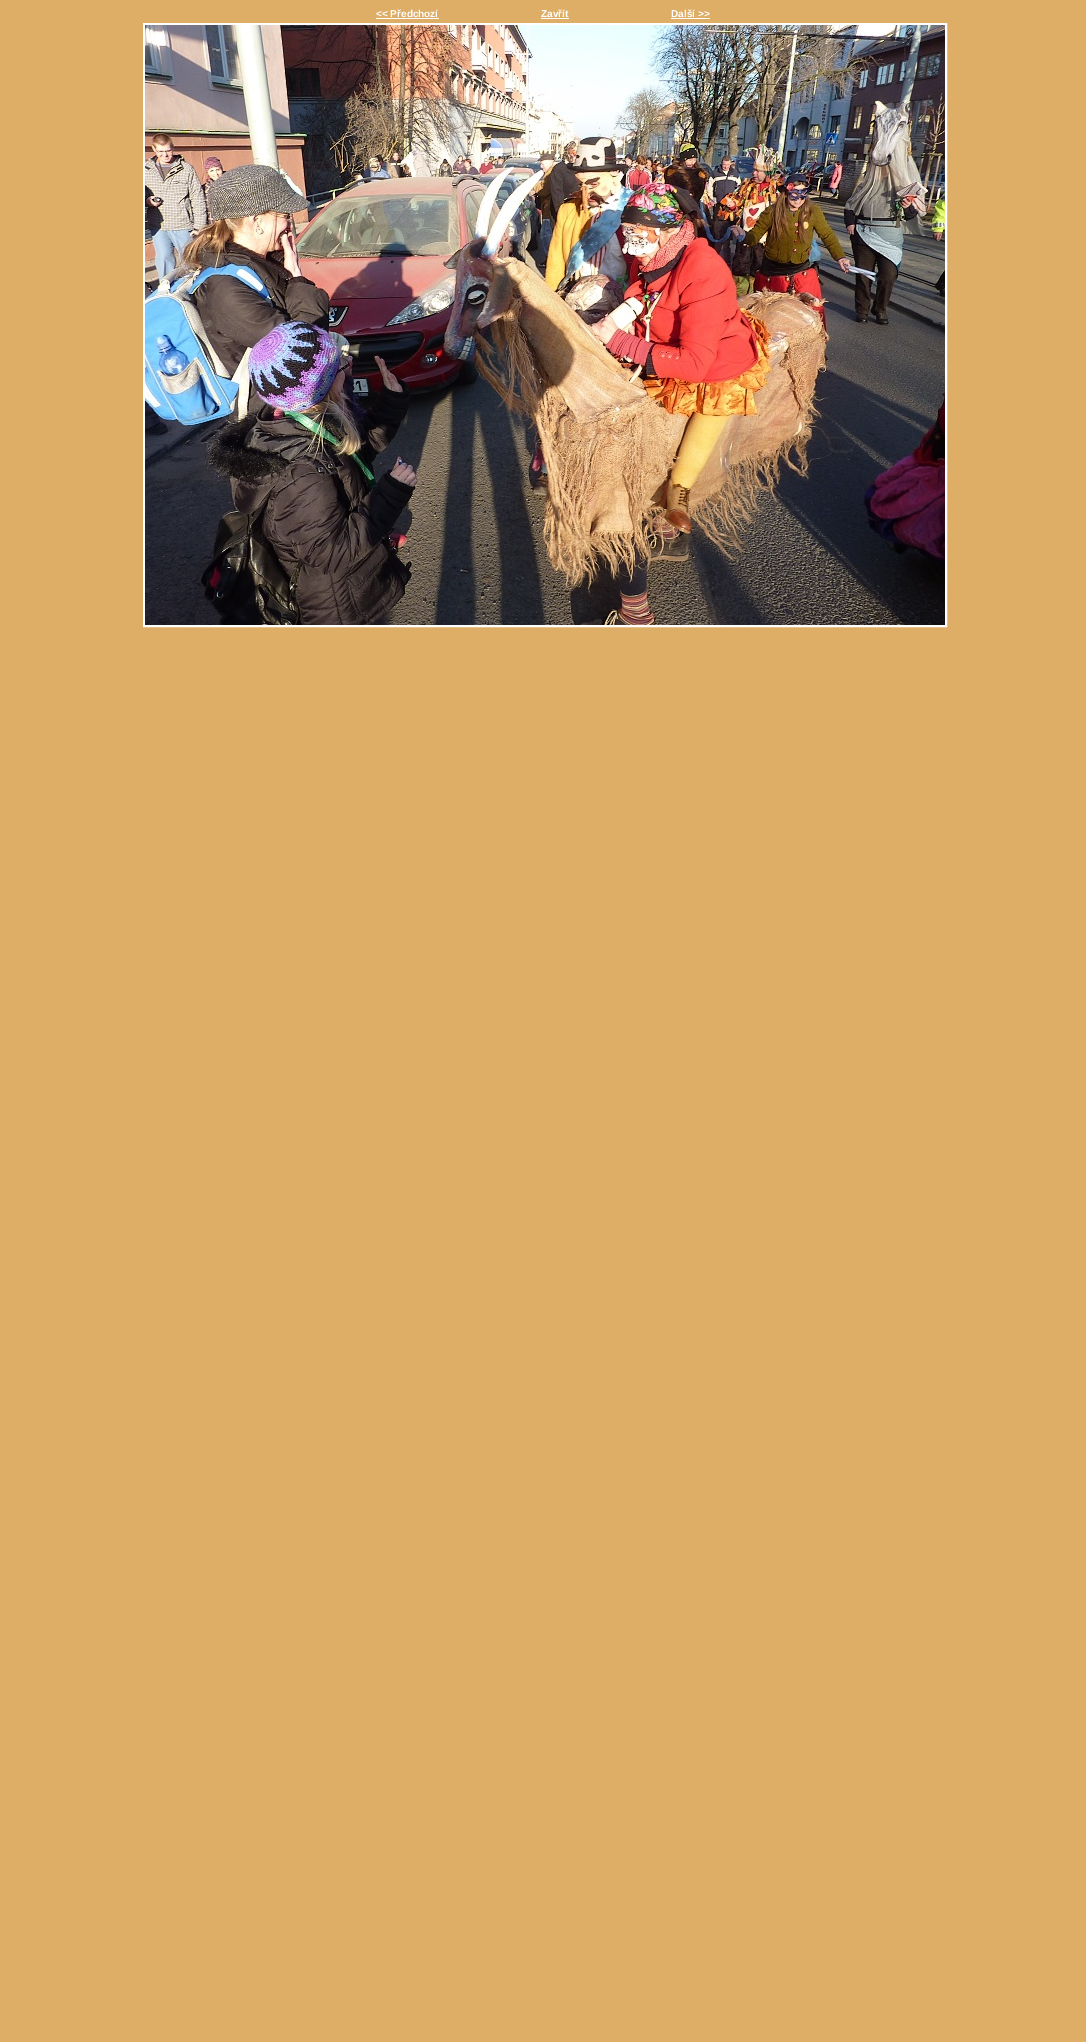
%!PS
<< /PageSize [1086 2042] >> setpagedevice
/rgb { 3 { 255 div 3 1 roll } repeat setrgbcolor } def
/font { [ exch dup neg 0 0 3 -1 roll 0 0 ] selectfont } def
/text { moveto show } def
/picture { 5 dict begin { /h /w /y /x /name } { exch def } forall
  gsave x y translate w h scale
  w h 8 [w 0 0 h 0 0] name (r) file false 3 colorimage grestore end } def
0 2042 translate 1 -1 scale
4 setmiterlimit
222 173 102 rgb
0 0 1086 2042 rectfill
255 255 255 rgb
376 18 63 1 rectfill
541 18 28 1 rectfill
671 18 39 1 rectfill
2 setlinewidth
144 24 802 602 rectstroke
(img_01.rgb) 145 25 800 600 picture
/LiberationSans-Bold 10 font
(<< Předchozí) 376 17 text
(Zavřít) 541 17 text
(Další >>) 671 17 text
showpage
